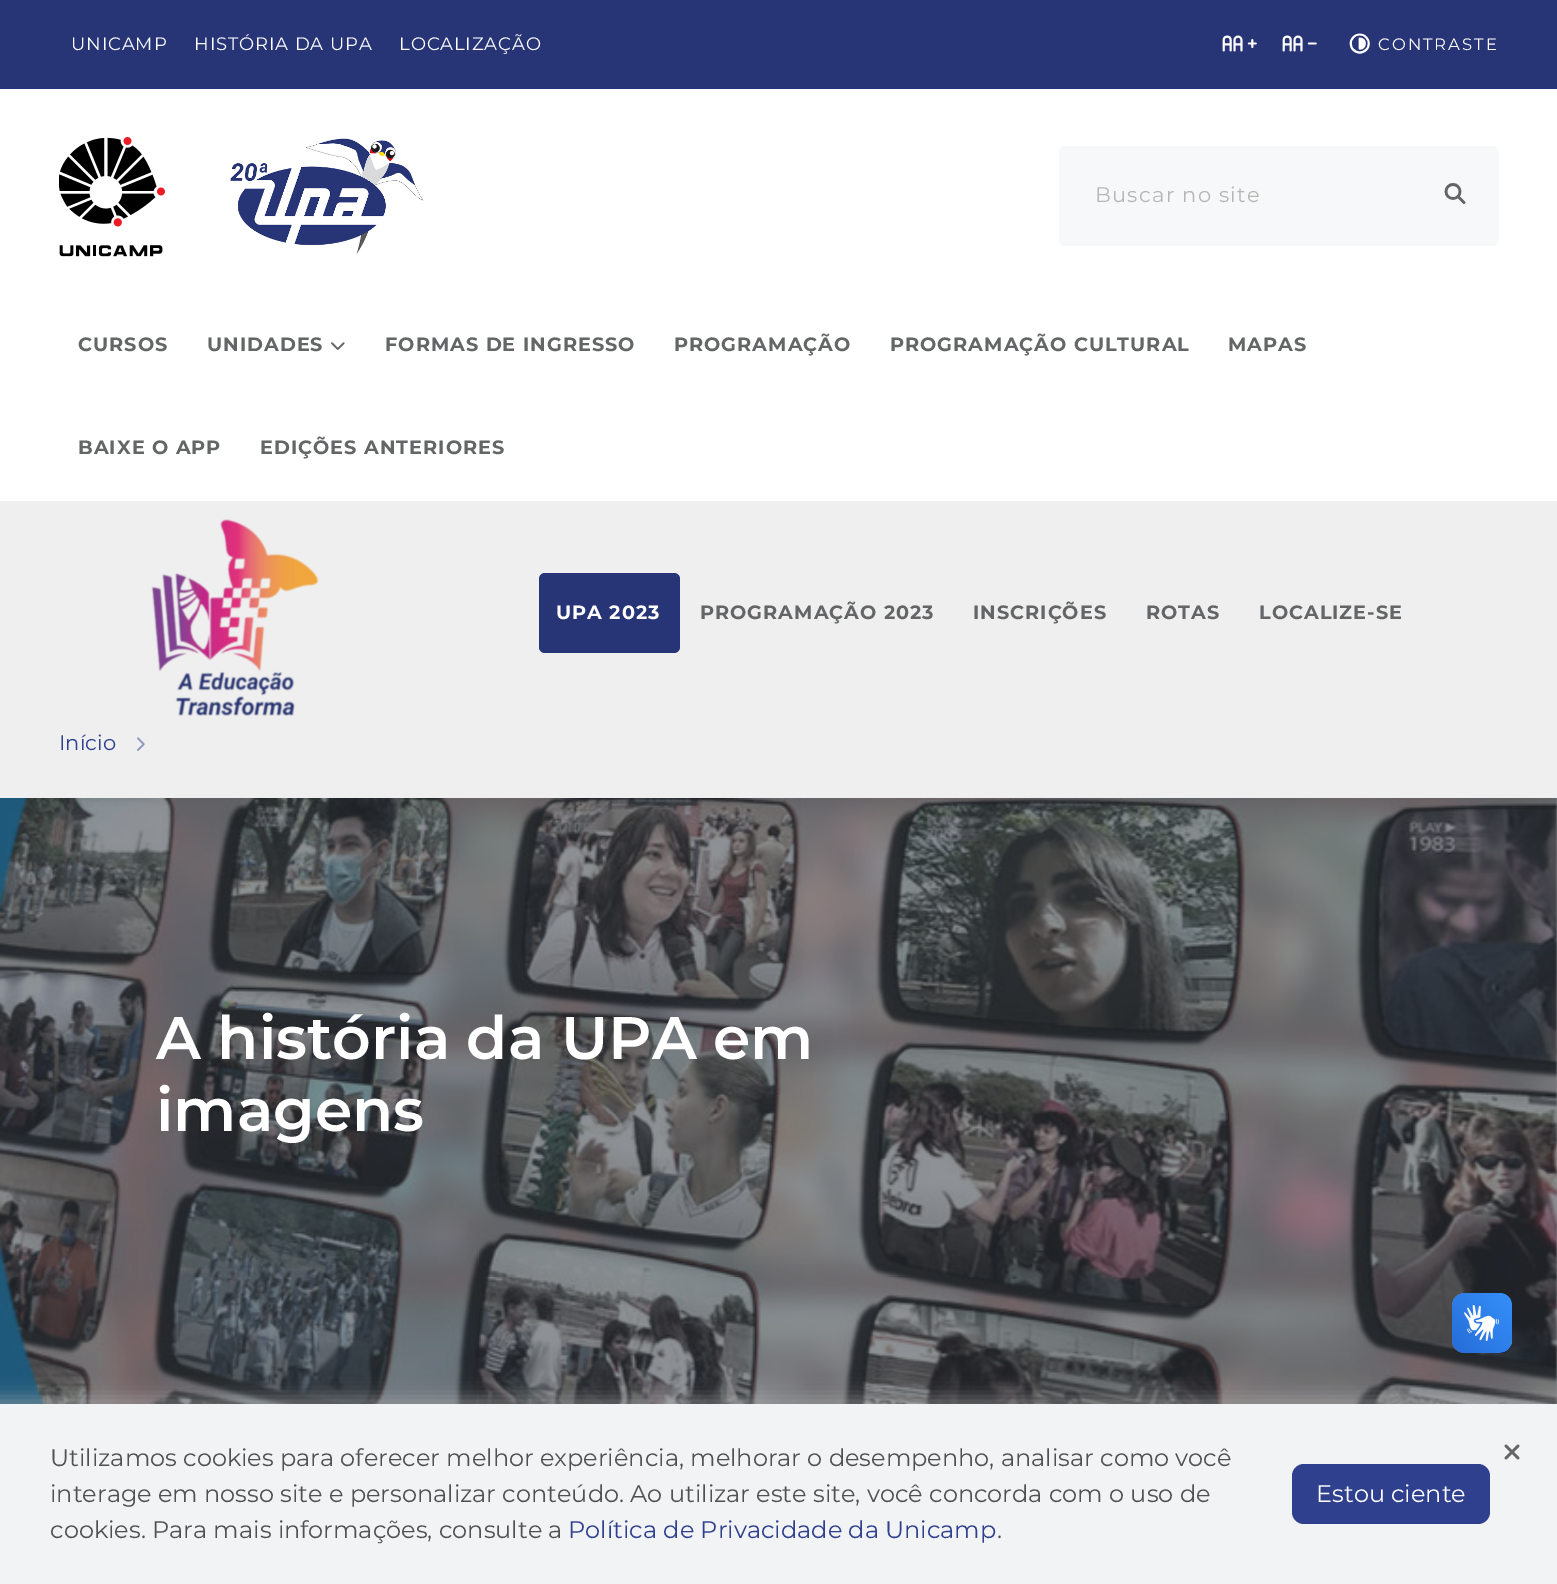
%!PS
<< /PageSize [1557 1584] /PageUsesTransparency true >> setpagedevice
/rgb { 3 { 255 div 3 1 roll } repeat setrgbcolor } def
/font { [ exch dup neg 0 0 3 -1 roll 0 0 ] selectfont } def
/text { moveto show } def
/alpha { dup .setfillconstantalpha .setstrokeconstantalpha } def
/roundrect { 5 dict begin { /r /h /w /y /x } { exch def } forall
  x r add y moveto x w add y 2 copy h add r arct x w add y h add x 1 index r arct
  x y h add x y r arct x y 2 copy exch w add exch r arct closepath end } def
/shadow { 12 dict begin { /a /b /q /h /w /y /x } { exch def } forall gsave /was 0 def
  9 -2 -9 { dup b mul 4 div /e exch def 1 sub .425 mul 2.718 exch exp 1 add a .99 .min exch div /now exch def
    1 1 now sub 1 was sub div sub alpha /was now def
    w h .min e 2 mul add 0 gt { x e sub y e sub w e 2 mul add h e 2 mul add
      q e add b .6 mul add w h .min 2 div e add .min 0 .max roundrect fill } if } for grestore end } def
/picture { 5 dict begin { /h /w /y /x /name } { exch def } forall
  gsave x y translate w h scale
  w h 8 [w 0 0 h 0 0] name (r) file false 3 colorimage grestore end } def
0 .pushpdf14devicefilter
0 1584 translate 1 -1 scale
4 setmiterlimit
255 255 255 rgb
0 0 1557 1584 rectfill
39 53 119 rgb
0 0 1557 89 rectfill
(img_01.rgb) 1222 35 35 17 picture
(img_02.rgb) 1282 35 35 17 picture
(img_03.rgb) 1349 33 21 21 picture
(img_04.rgb) 59 137 106 120 picture
(img_05.rgb) 230 138 194 116 picture
247 248 250 rgb
1059 146 440 100 6 roundrect fill
(img_06.rgb) 1444 183 22 21 picture
(img_07.rgb) 331 342 14 8 picture
239 239 239 rgb
0 501 1557 297 rectfill
135 139 143 rgb
1555 798 2 606 rectfill
(img_08.rgb) 151 519 168 197 picture
39 53 119 rgb
539 573 141 80 6 roundrect fill
(img_09.rgb) 137 737 8 14 picture
(img_10.rgb) 0 798 1557 606 picture
(img_11.rgb) 1452 1293 60 60 picture
(img_12.rgb) 1452 1293 60 60 picture
184 182 181 rgb
-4 1397 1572 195 0 9 0.48 shadow
242 243 245 rgb
0 1404 1557 180 rectfill
47 64 143 rgb
1292 1464 198 60 12 roundrect fill
(img_13.rgb) 1504 1444 16 16 picture
/Montserrat-Regular 18 font
255 255 255 rgb
71 50 moveto 0.9 0 (UNICAMP) ashow
194 50 moveto 0.9 0 (HISTÓRIA DA UPA) ashow
399 50 moveto 0.9 0 (LOCALIZAÇÃO) ashow
/Montserrat-Regular 16.5 font
1378 50 moveto 2 0 (CONTRASTE) ashow
/Montserrat-Regular 21 font
184 182 181 rgb
1095 202 moveto 1.25 0 (Buscar no site) ashow
/Montserrat-Bold 19.25 font
100 101 102 rgb
78 351 moveto 1 0 (CURSOS) ashow
207 351 moveto 1 0 (UNIDADES) ashow
385 351 moveto 1 0 (FORMAS DE INGRESSO) ashow
674 351 moveto 1 0 (PROGRAMAÇÃO) ashow
890 351 moveto 1 0 (PROGRAMAÇÃO CULTURAL) ashow
1228 351 moveto 1 0 (MAPAS) ashow
78 454 moveto 1 0 (BAIXE O APP) ashow
260 454 moveto 1 0 (EDIÇÕES ANTERIORES) ashow
255 255 255 rgb
556 619 moveto 1 0 (UPA 2023) ashow
100 101 102 rgb
700 619 moveto 1 0 (PROGRAMAÇÃO 2023) ashow
973 619 moveto 1 0 (INSCRIÇÕES) ashow
1146 619 moveto 1 0 (ROTAS) ashow
1259 619 moveto 1 0 (LOCALIZE-SE) ashow
/Montserrat-Regular 21 font
47 64 143 rgb
(Início) 59 750 text
/Montserrat-SemiBold 60 font
255 255 255 rgb
(A história da UPA em) 156 1059 text
(imagens) 156 1131 text
/Montserrat-Regular 24 font
80 81 82 rgb
(Utilizamos cookies para oferecer melhor experiência, melhorar o desempenho, analisar como você) 50 1466 text
(interage em nosso site e personalizar conteúdo. Ao utilizar este site, você concorda com o uso de) 50 1502 text
(cookies. Para mais informações, consulte a) 50 1538 text
47 64 143 rgb
(Política de Privacidade da Unicamp) 568 1538 text
80 81 82 rgb
(.) 997 1538 text
255 255 255 rgb
(Estou ciente) 1316 1502 text
.poppdf14devicefilter showpage
